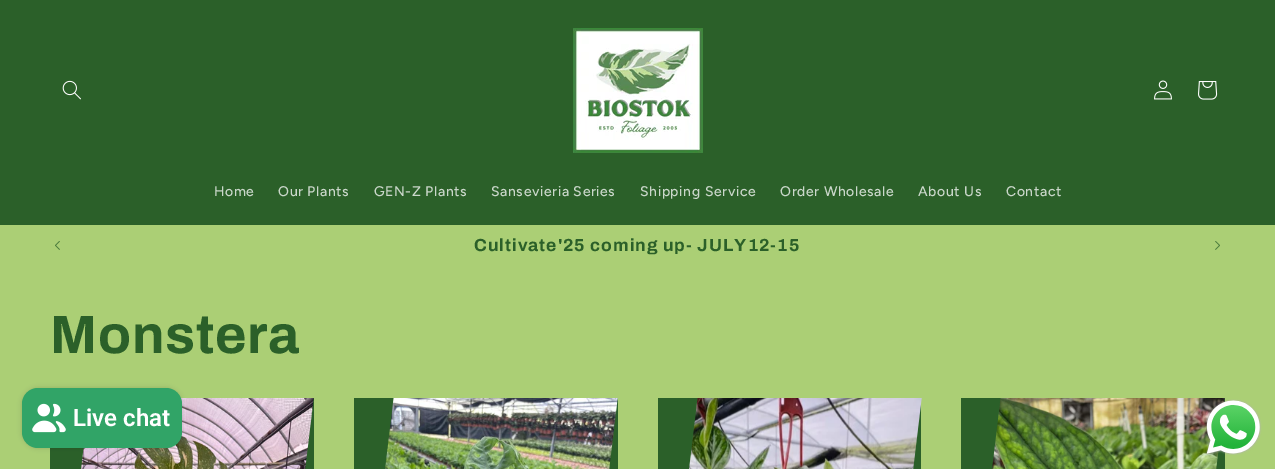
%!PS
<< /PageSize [1275 469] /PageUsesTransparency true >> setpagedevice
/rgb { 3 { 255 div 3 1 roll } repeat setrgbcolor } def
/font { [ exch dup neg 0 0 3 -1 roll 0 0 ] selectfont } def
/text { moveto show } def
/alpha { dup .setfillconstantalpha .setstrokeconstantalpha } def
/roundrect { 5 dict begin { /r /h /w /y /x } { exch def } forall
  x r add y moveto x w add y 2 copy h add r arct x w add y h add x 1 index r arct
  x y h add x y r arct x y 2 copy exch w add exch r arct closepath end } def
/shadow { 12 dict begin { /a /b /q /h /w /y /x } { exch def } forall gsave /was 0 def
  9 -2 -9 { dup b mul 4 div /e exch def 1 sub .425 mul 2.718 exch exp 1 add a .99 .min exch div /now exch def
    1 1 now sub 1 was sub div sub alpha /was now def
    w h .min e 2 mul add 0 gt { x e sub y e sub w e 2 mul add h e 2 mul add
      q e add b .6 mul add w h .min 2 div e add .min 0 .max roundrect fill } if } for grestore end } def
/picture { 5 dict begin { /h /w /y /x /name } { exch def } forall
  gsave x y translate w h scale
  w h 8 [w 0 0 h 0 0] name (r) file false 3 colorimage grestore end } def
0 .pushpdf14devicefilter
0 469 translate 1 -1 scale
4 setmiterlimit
171 207 117 rgb
0 0 1275 469 rectfill
43 96 41 rgb
0 0 1275 225 rectfill
(img_01.rgb) 62 80 19 20 picture
(img_02.rgb) 573 28 130 125 picture
(img_03.rgb) 1154 80 18 20 picture
(img_04.rgb) 1198 81 20 19 picture
(img_05.rgb) 55 241 5 9 picture
(img_06.rgb) 1215 241 5 9 picture
50 398 264 71 rectfill
(img_07.rgb) 81 398 233 71 picture
354 398 264 71 rectfill
(img_08.rgb) 385 398 233 71 picture
658 398 263 71 rectfill
(img_09.rgb) 689 398 233 71 picture
961 398 264 71 rectfill
(img_10.rgb) 992 398 233 71 picture
0 0 0 rgb
22 388 160 60 16 2.5 0.15 shadow
49 164 103 rgb
22 388 160 60 16 roundrect fill
(img_11.rgb) 32 403 34 30 picture
(img_12.rgb) 1205 399 57 56 picture
/Figtree-Medium 14 font
202 215 202 rgb
214 196 moveto 0.6 0 (Home) ashow
278 196 moveto 0.6 0 (Our Plants) ashow
374 196 moveto 0.6 0 (GEN-Z Plants) ashow
491 196 moveto 0.6 0 (Sansevieria Series) ashow
640 196 moveto 0.6 0 (Shipping Service) ashow
780 196 moveto 0.6 0 (Order Wholesale) ashow
918 196 moveto 0.6 0 (About Us) ashow
1006 196 moveto 0.6 0 (Contact) ashow
/Archivo-Bold 17.5 font
43 96 41 rgb
474 251 moveto 1 0 (Cultivate'25 coming up- JULY12-15) ashow
/Archivo-Bold 54 font
50 353 moveto 0.75 0 (Monstera) ashow
/Roboto-SemiBold 24 font
255 255 255 rgb
(Live chat) 73 426 text
.poppdf14devicefilter showpage
